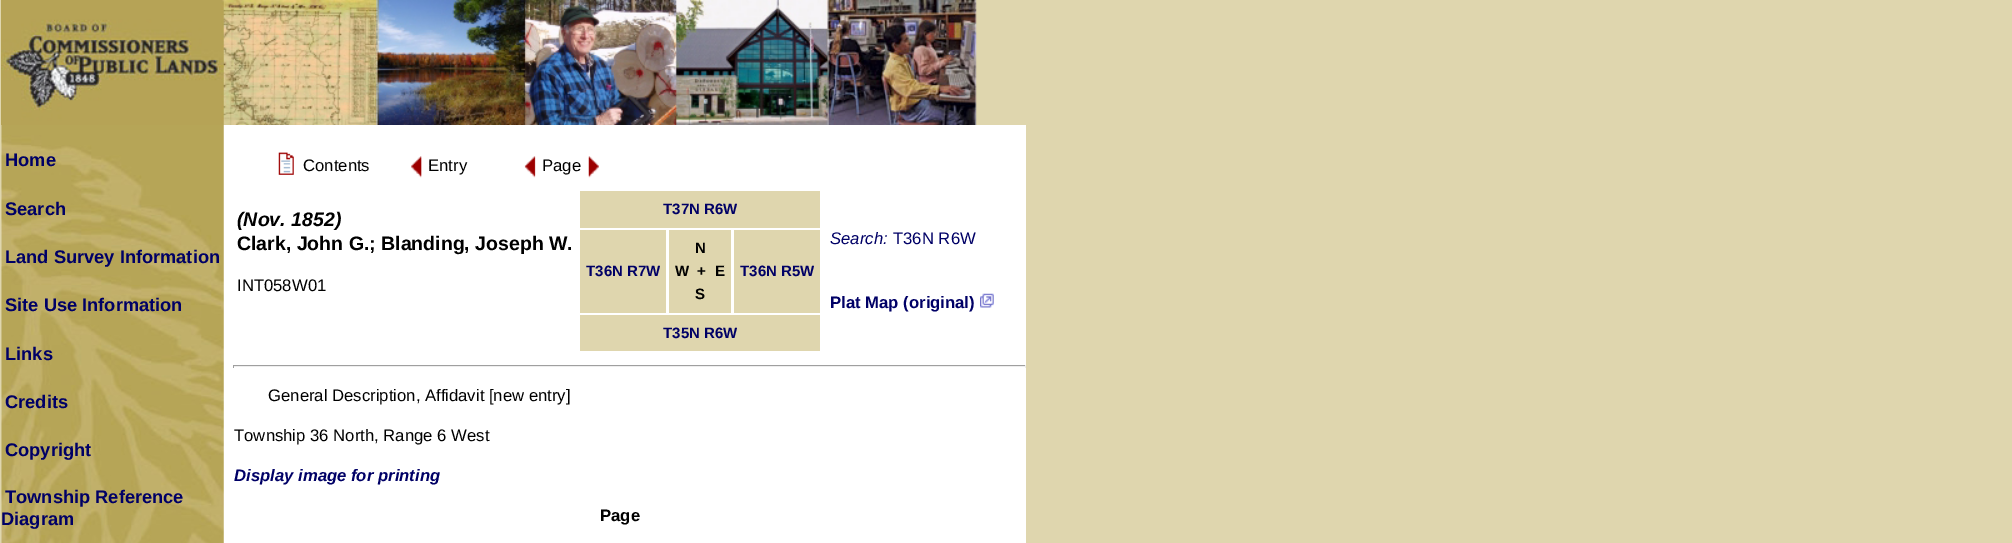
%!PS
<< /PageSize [2012 543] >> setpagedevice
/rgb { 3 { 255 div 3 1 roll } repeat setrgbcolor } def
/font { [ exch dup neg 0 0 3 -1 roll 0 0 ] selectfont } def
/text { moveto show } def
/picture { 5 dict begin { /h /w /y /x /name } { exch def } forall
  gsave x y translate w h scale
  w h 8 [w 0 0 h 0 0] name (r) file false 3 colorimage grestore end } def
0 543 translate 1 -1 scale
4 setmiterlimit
223 214 174 rgb
0 0 2012 543 rectfill
(img_01.rgb) 1 0 976 125 picture
255 255 255 rgb
1 125 1025 418 rectfill
(img_02.rgb) 1 125 223 418 picture
(img_03.rgb) 278 152 16 23 picture
(img_04.rgb) 411 156 11 22 picture
(img_05.rgb) 524 156 12 22 picture
(img_06.rgb) 588 156 11 22 picture
223 214 174 rgb
580 191 240 37 rectfill
(img_07.rgb) 980 293 14 15 picture
580 230 86 83 rectfill
669 230 62 83 rectfill
734 230 86 83 rectfill
580 315 240 36 rectfill
159 159 159 rgb
233 365 793 1 rectfill
238 238 238 rgb
1025 365 1 3 rectfill
233 366 793 1 rectfill
159 159 159 rgb
233 365 1 3 rectfill
/LiberationSans-Bold 18.25 font
0 0 102 rgb
(Home) 5 166 text
(Search) 5 215 text
(Land Survey Information) 5 263 text
(Site Use Information) 5 311 text
(Links) 5 360 text
(Credits) 5 408 text
(Copyright) 5 456 text
(Township Reference) 5 503 text
(Diagram) 1 525 text
/LiberationSans-Regular 16.7 font
0 0 0 rgb
(Contents) 303 171 text
(Entry) 428 171 text
(Page) 542 171 text
/LiberationSans-BoldItalic 19.5 font
(\(Nov. 1852\)) 237 226 text
/LiberationSans-Bold 19.5 font
(Clark, John G.; Blanding, Joseph W.) 237 250 text
/LiberationSans-Regular 16.7 font
(INT058W01) 237 291 text
/LiberationSans-Bold 15 font
0 0 102 rgb
(T37N R6W) 663 214 text
/LiberationSans-Italic 16.7 font
(Search:) 830 244 text
/LiberationSans-Regular 16.7 font
(T36N R6W) 893 244 text
/LiberationSans-Bold 16.7 font
(Plat Map \(original\)) 830 308 text
/LiberationSans-Bold 15 font
(T36N R7W) 586 276 text
0 0 0 rgb
(N) 695 253 text
(W  +  E) 675 276 text
(S) 695 299 text
0 0 102 rgb
(T36N R5W) 740 276 text
(T35N R6W) 663 338 text
/LiberationSans-Regular 16.7 font
0 0 0 rgb
(General Description, Affidavit [new entry]) 268 401 text
(Township 36 North, Range 6 West) 234 441 text
/LiberationSans-BoldItalic 16.7 font
0 0 102 rgb
(Display image for printing) 234 481 text
/LiberationSans-Bold 16.7 font
0 0 0 rgb
(Page) 600 521 text
showpage
